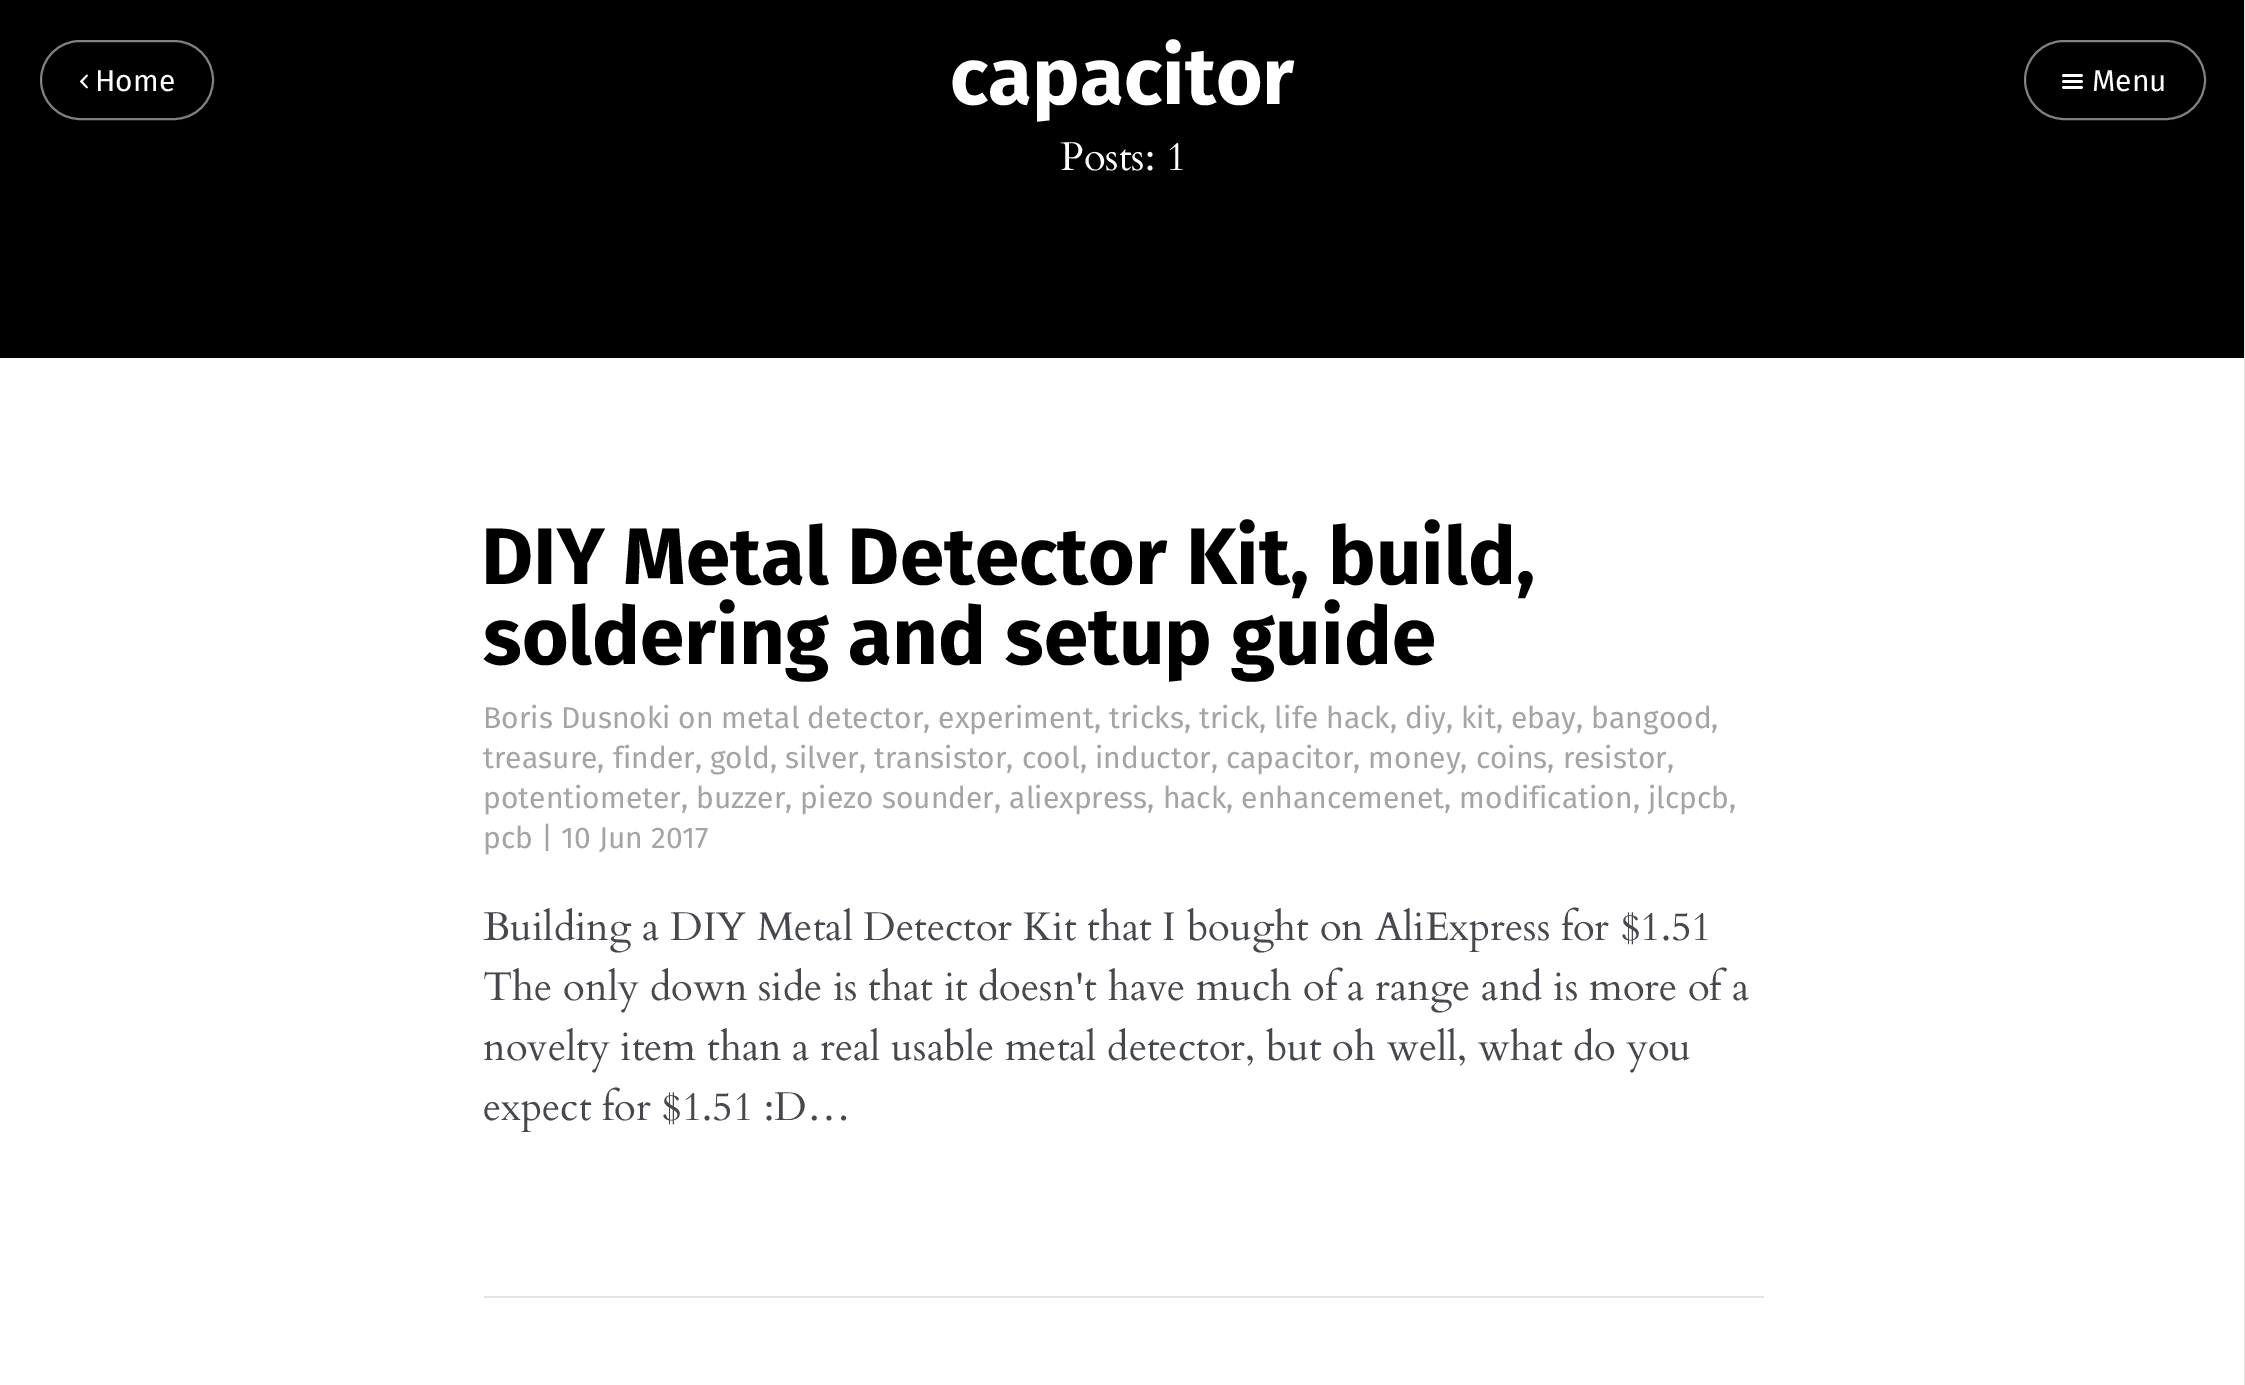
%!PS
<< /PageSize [2245 1385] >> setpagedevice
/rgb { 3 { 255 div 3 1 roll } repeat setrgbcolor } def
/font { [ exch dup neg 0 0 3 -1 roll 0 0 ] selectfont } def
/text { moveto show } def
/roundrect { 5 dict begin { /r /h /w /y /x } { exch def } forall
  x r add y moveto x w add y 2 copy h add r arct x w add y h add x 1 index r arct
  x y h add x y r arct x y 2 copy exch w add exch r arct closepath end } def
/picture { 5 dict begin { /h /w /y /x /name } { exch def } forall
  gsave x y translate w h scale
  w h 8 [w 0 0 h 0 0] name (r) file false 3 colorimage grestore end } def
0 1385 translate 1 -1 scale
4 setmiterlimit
255 255 255 rgb
0 0 2245 1385 rectfill
0 0 0 rgb
0 0 2244 358 rectfill
128 128 128 rgb
2 setlinewidth
41 41 172 78 39 roundrect stroke
(img_01.rgb) 80 74 8 15 picture
2025 41 180 78 39 roundrect stroke
(img_02.rgb) 2062 74 21 15 picture
229 228 225 rgb
484 1296 1280 2 rectfill
2244 0 1 1385 rectfill
/FiraSans-Bold 80 font
255 255 255 rgb
(capacitor) 950 104 text
/FiraSans-Regular 30 font
(Home) 95 91 text
(Menu) 2092 91 text
/Cardo-Regular 40 font
(Posts: 1) 1060 170 text
/FiraSans-Bold 80 font
0 0 0 rgb
(DIY Metal Detector Kit, build,) 481 584 text
(soldering and setup guide) 483 664 text
/FiraSans-Regular 30 font
162 164 166 rgb
(Boris Dusnoki on metal detector, experiment, tricks, trick, life hack, diy, kit, ebay, bangood,) 483 728 text
(treasure, finder, gold, silver, transistor, cool, inductor, capacitor, money, coins, resistor,) 483 768 text
(potentiometer, buzzer, piezo sounder, aliexpress, hack, enhancemenet, modification, jlcpcb,) 483 808 text
(pcb | 10 Jun 2017) 483 848 text
/Cardo-Regular 40 font
69 72 77 rgb
(Building a DIY Metal Detector Kit that I bought on AliExpress for $1.51) 483 940 text
(The only down side is that it doesn't have much of a range and is more of a) 483 1000 text
(novelty item than a real usable metal detector, but oh well, what do you) 483 1060 text
(expect for $1.51 :D…) 483 1120 text
showpage
